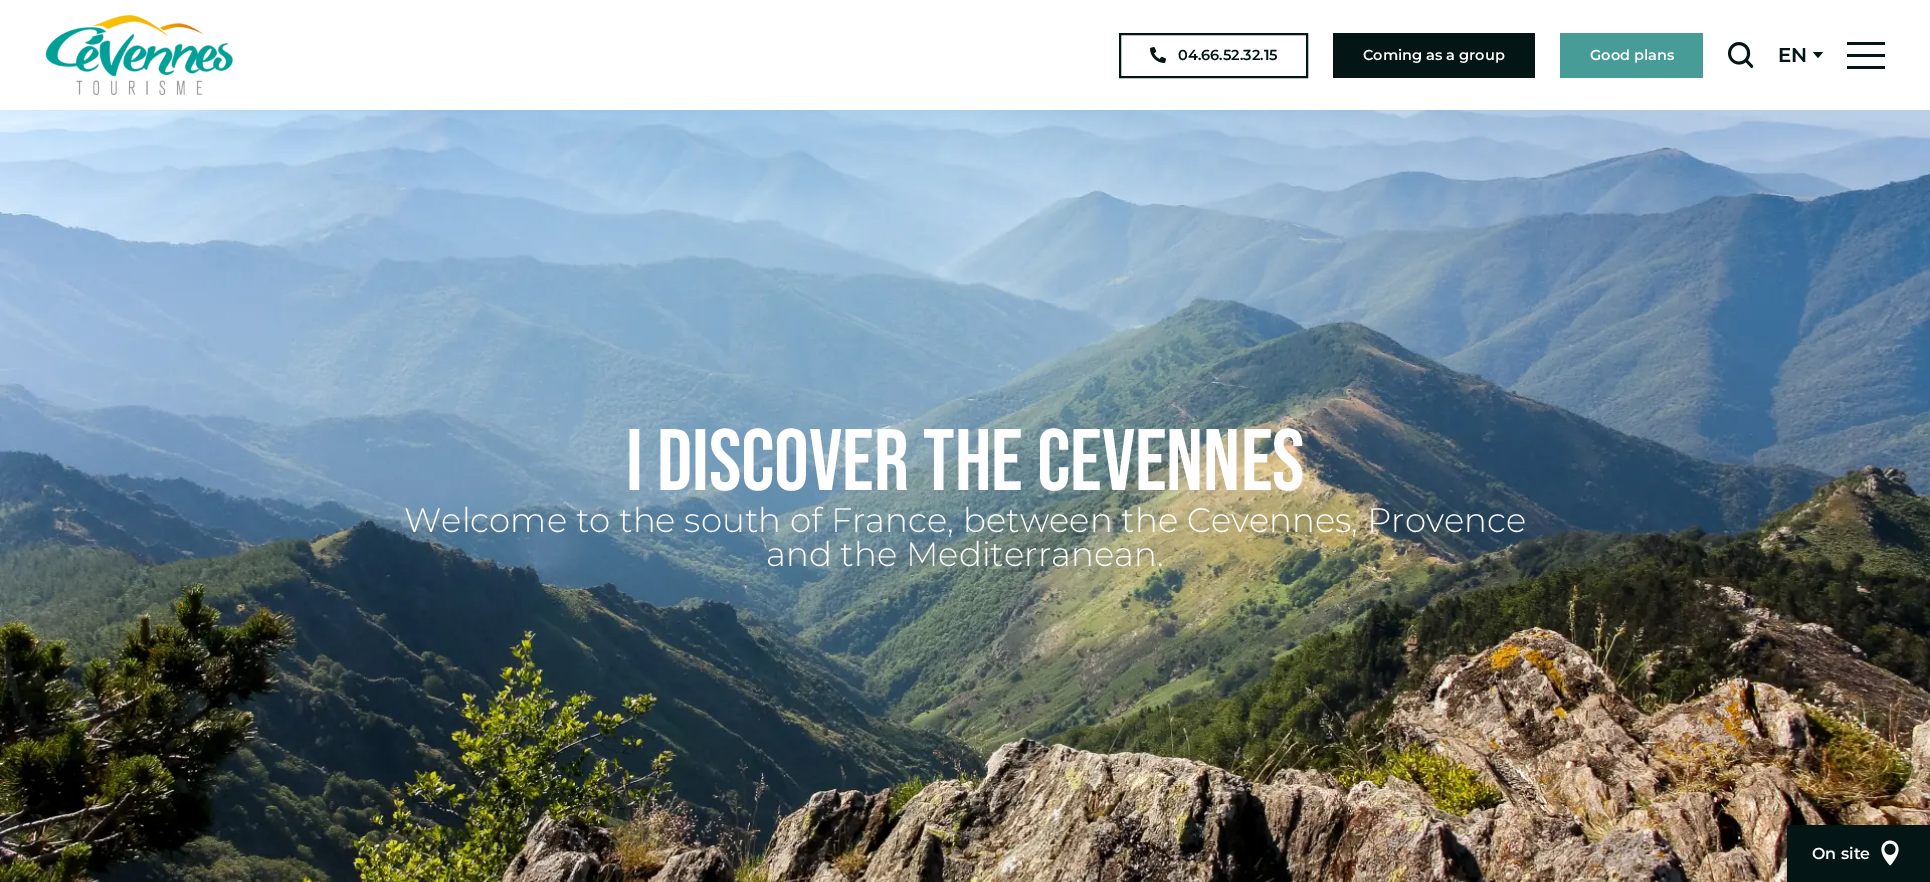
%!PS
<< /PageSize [1930 882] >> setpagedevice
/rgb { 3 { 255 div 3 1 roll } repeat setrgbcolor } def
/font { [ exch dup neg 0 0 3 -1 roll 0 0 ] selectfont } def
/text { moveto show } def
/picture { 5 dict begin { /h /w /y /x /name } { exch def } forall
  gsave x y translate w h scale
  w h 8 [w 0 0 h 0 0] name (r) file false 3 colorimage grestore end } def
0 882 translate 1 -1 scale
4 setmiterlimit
255 255 255 rgb
0 0 1930 882 rectfill
(img_01.rgb) 45 15 188 80 picture
3 21 20 rgb
1847 42 38 3 rectfill
1847 54 38 3 rectfill
1847 66 38 3 rectfill
2 setlinewidth
1120 34 187 43 rectstroke
(img_02.rgb) 1150 47 16 16 picture
1333 33 202 45 rectfill
72 156 151 rgb
1560 33 143 45 rectfill
(img_03.rgb) 1728 42 26 26 picture
3 21 20 rgb
1813 52 moveto 10 0 rlineto -5 6 rlineto closepath fill
(img_04.rgb) 0 110 1930 772 picture
1787 825 143 57 rectfill
(img_05.rgb) 1881 840 18 26 picture
/Montserrat-SemiBold 14.5 font
(04.66.52.32.15) 1178 60 text
254 254 254 rgb
(Coming as a group) 1363 60 text
(Good plans) 1590 60 text
/Montserrat-SemiBold 20 font
3 21 20 rgb
(EN) 1778 62 text
/BebasNeue-Regular 87 font
254 254 254 rgb
(I discover the Cevennes) 626 490 text
/Montserrat-Light 34 font
(Welcome to the south of France, between the Cevennes, Provence) 404 532 text
(and the Mediterranean.) 766 566 text
/Montserrat-Regular 15 font
83 77 52 rgb
(©) 19 863 text
/Montserrat-SemiBold 16 font
254 254 254 rgb
(On site) 1812 859 text
showpage
